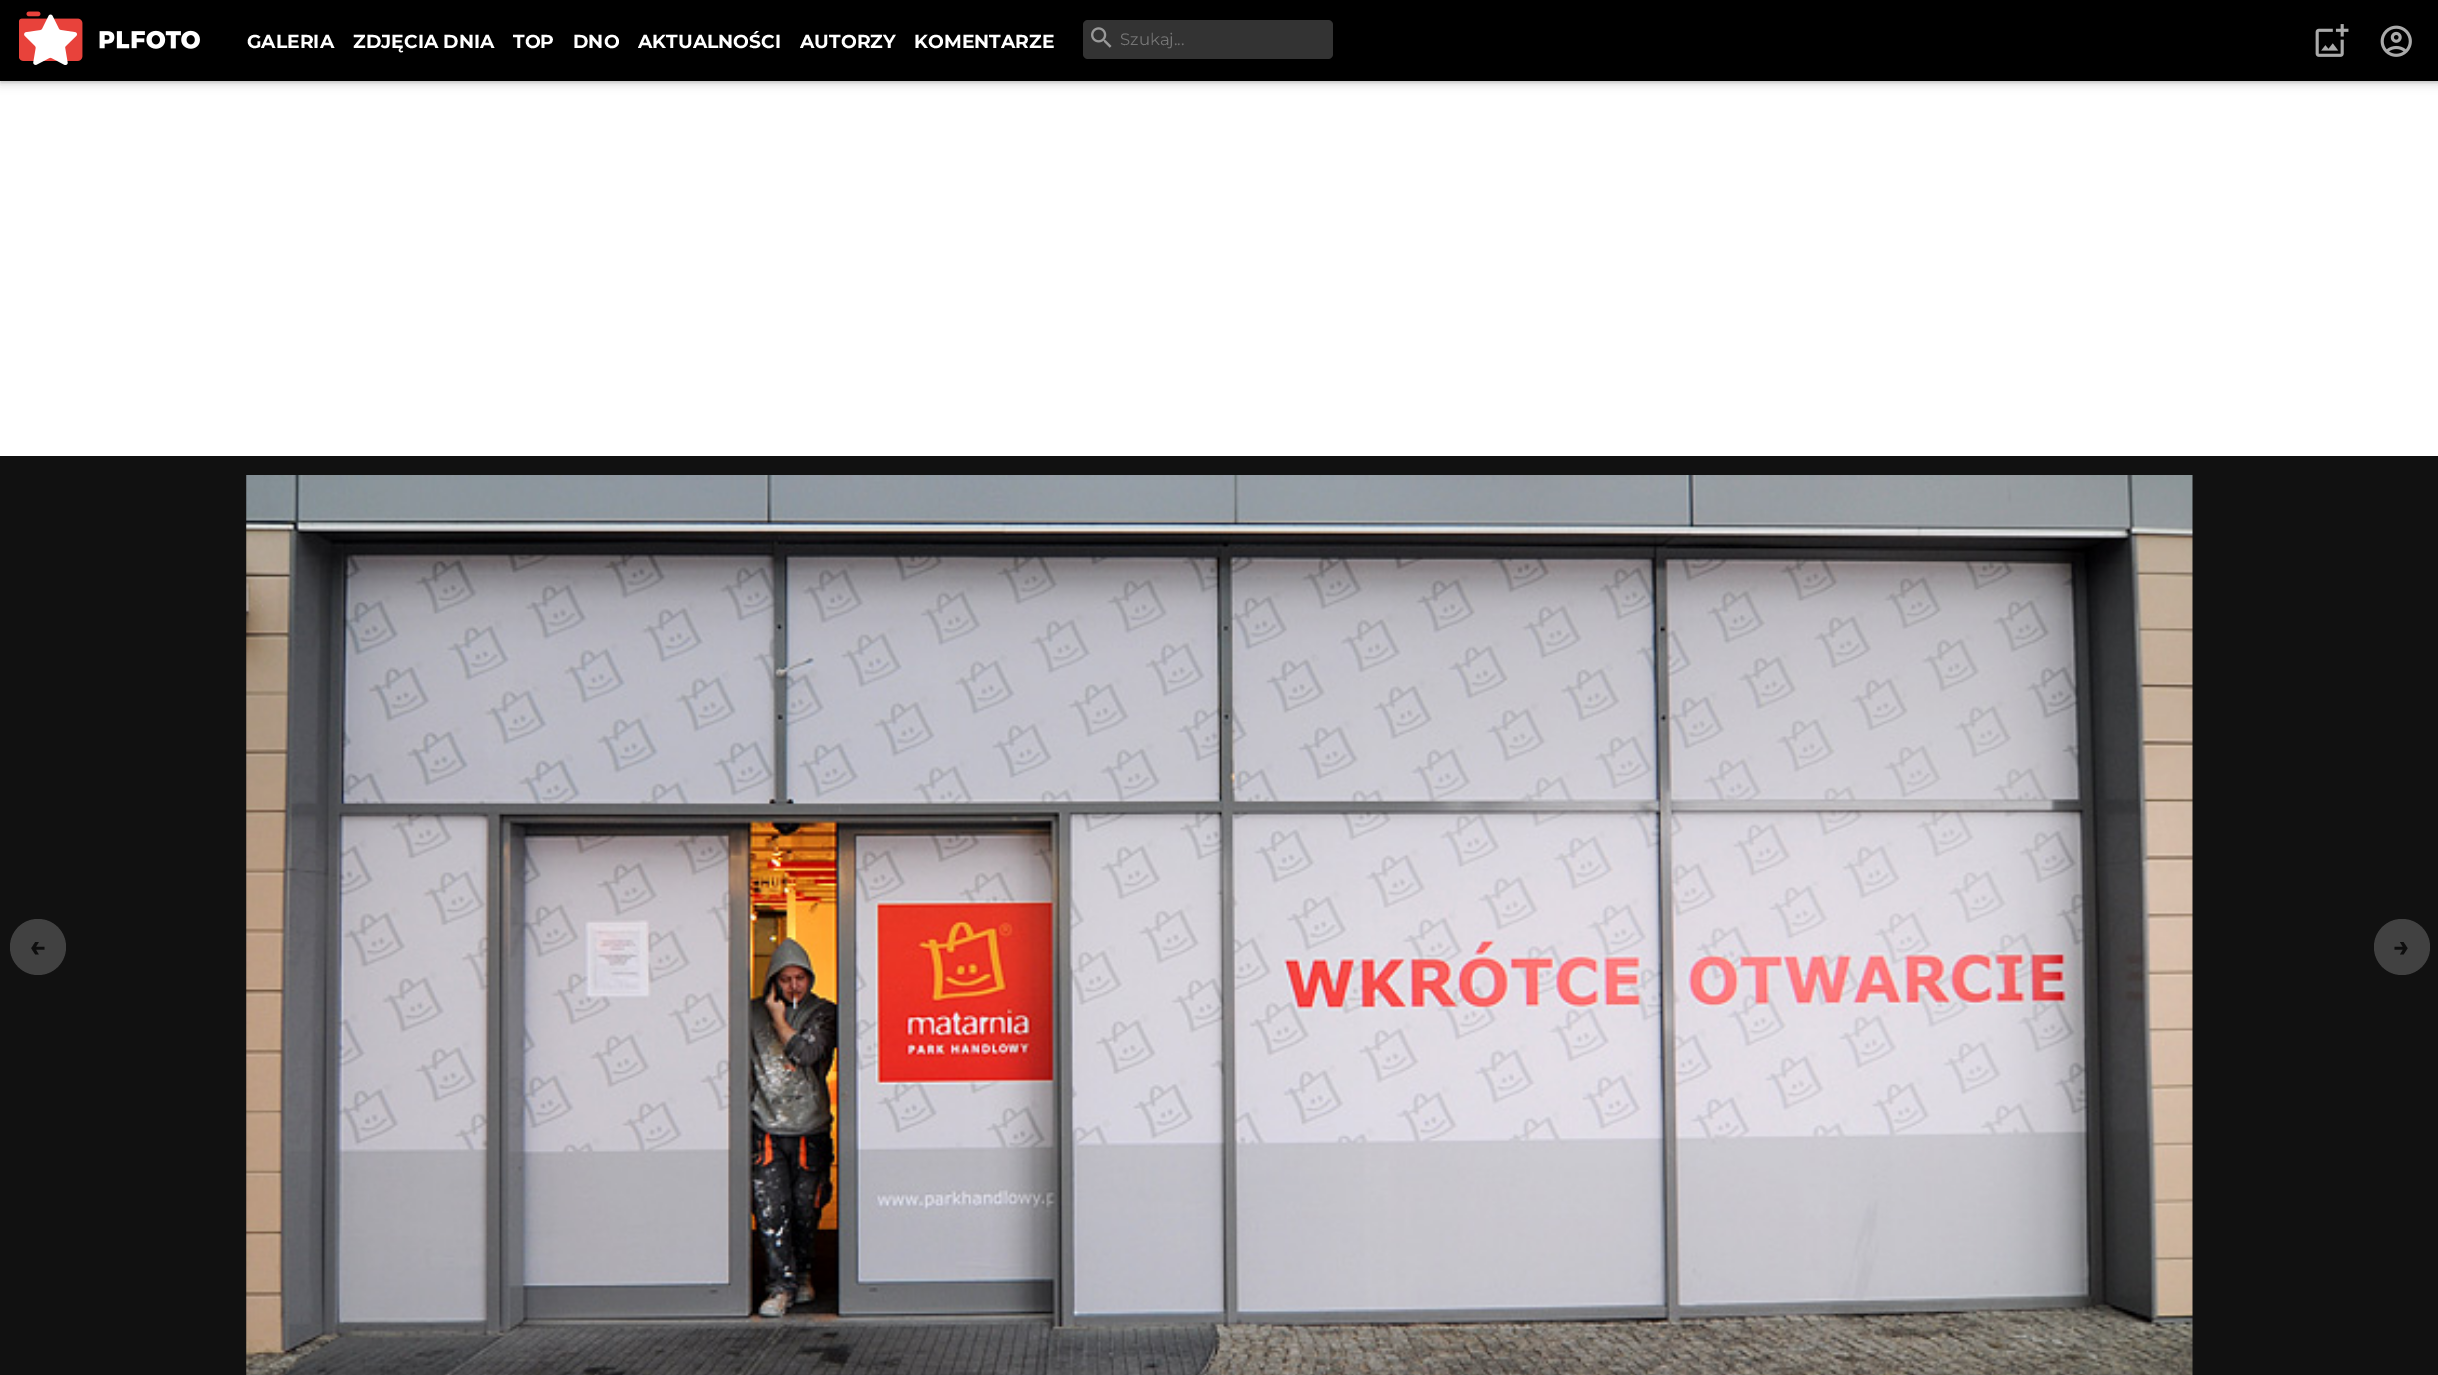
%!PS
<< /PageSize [2438 1375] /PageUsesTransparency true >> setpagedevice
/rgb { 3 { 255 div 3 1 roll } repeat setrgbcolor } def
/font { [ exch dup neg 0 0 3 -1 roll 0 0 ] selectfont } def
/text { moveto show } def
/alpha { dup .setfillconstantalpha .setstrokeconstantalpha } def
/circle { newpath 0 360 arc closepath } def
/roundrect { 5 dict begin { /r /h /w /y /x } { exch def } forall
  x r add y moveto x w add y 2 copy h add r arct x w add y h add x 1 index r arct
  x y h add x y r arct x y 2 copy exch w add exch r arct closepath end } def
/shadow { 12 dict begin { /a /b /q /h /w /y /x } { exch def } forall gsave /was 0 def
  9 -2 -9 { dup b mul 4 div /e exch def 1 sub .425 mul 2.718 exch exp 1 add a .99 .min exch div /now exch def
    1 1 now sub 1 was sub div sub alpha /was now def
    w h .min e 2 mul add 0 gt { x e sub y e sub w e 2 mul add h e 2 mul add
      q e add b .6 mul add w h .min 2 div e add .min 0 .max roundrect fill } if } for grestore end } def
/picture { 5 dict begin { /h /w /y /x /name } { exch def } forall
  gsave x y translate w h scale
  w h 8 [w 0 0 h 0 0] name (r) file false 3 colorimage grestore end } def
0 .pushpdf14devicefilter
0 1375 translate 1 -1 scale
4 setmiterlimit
255 255 255 rgb
0 0 2438 1375 rectfill
0 0 0 rgb
0 1 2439 82 0 1 0.11 shadow
0 4 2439 81 0 4.5 0.13 shadow
0 0 2438 81 rectfill
(img_01.rgb) 19 11 181 54 picture
51 51 51 rgb
1083 20 250 39 5 roundrect fill
(img_02.rgb) 1091 27 21 21 picture
(img_03.rgb) 2315 24 34 33 picture
(img_04.rgb) 2380 25 32 32 picture
17 17 17 rgb
0 456 2438 919 rectfill
65 65 65 rgb
38 947 28 circle fill
(img_05.rgb) 246 475 1947 900 picture
2402 947 28 circle fill
/Montserrat-Bold 18.75 font
255 255 255 rgb
(GALERIA) 247 48 text
(ZDJĘCIA DNIA) 353 48 text
(TOP) 513 48 text
(DNO) 573 48 text
(AKTUALNOŚCI) 638 48 text
(AUTORZY) 800 48 text
(KOMENTARZE) 914 48 text
/Montserrat-Regular 16.5 font
117 117 117 rgb
(Szukaj...) 1120 45 text
/Montserrat-Bold 28 font
14 14 14 rgb
(←) 29 956 text
(→) 2393 956 text
.poppdf14devicefilter showpage
